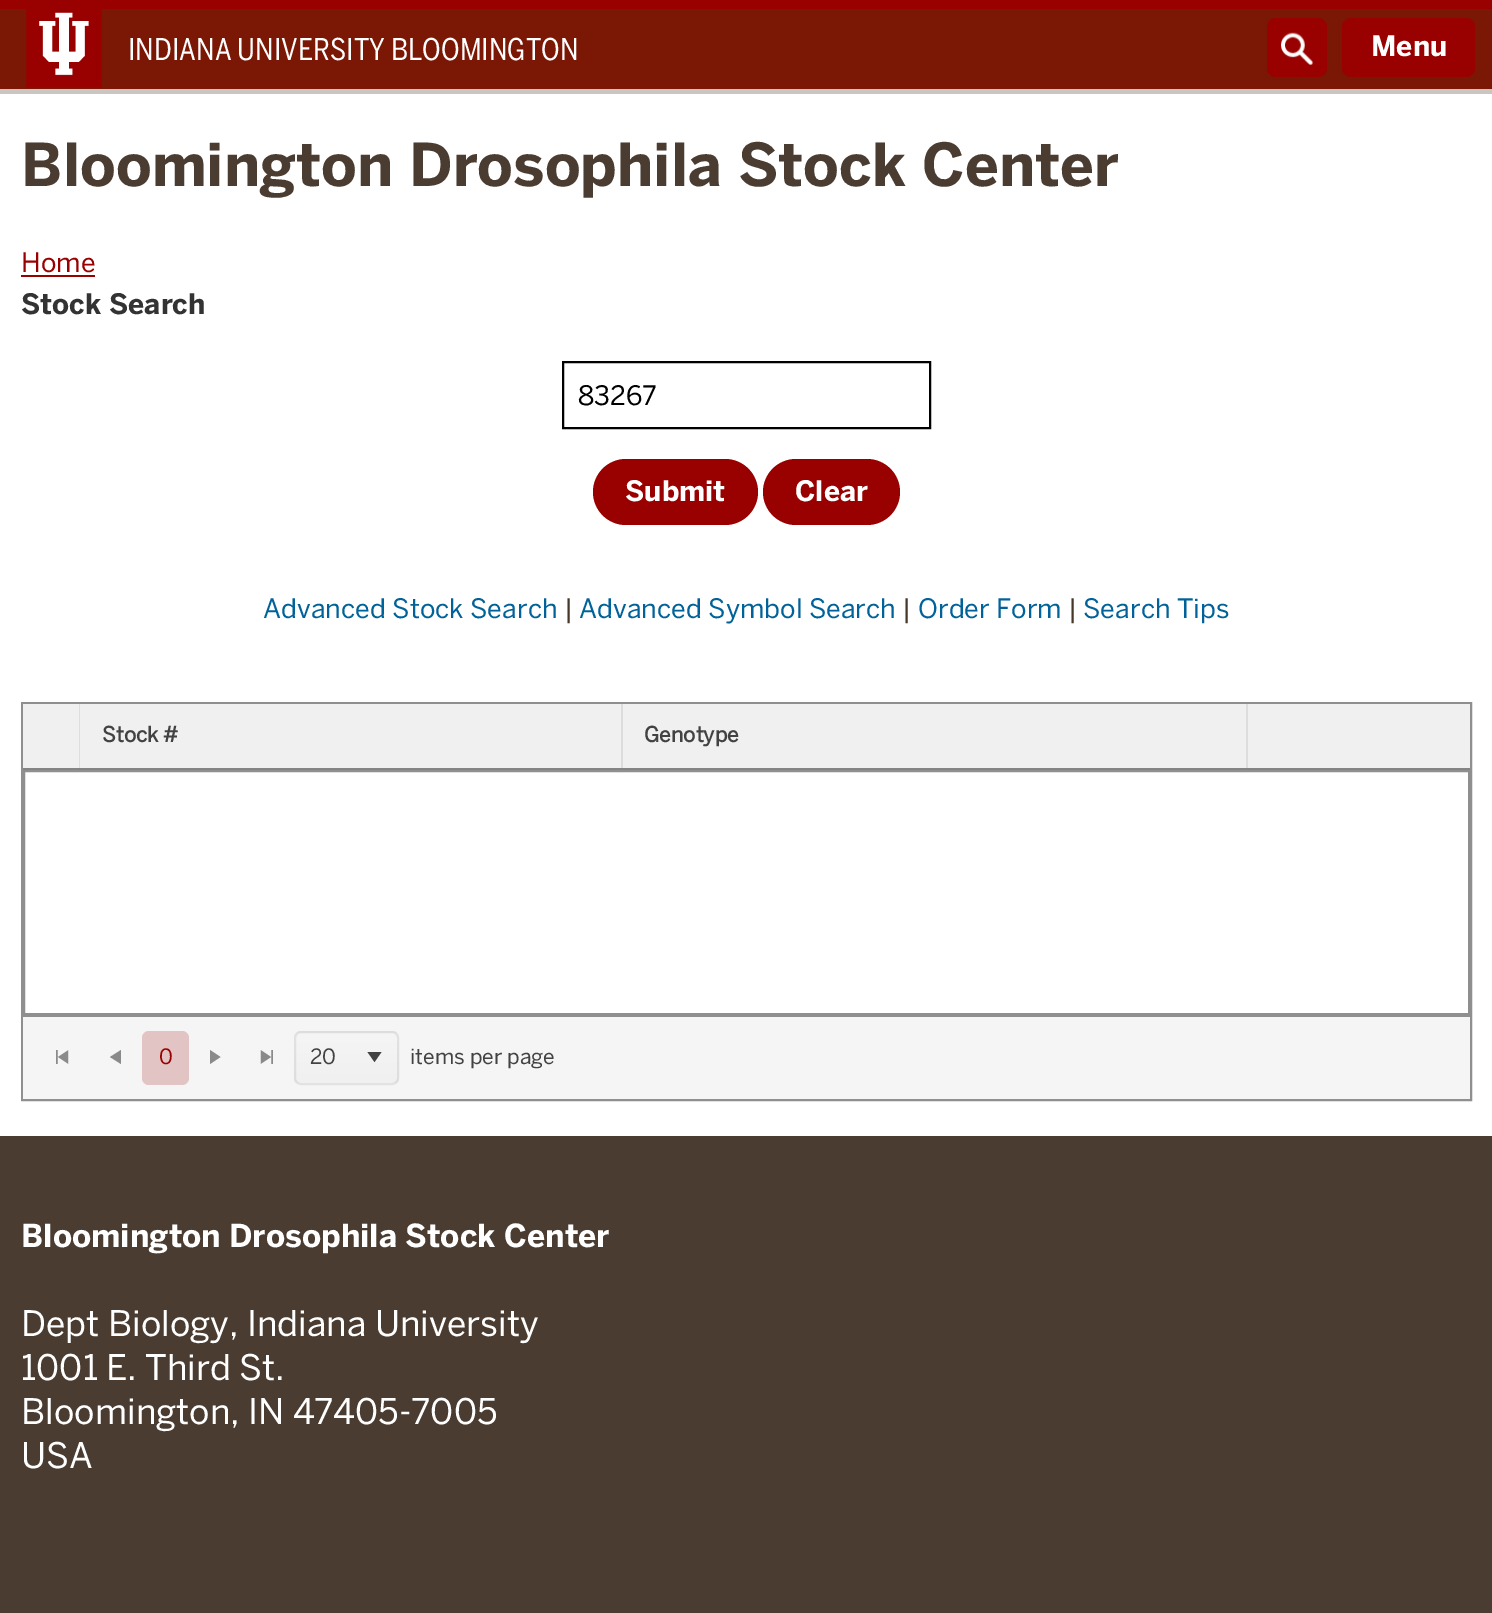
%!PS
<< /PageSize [1492 1613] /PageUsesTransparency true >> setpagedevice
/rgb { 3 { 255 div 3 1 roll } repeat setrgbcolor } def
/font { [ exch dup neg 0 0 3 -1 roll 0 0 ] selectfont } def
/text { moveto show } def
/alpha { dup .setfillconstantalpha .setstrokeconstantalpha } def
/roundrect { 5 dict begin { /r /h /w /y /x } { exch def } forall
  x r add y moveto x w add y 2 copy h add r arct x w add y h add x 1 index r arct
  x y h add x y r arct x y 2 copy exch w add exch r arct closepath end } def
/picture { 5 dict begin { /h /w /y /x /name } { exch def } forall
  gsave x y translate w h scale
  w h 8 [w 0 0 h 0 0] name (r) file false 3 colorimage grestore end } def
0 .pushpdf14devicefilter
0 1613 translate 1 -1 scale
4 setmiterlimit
255 255 255 rgb
0 0 1492 1613 rectfill
122 23 5 rgb
0 9 1492 80 rectfill
153 0 0 rgb
0 0 1492 9 rectfill
(img_01.rgb) 26 9 76 79 picture
201 197 193 rgb
0 89 1492 5 rectfill
153 0 0 rgb
1267 18 60 59 9 roundrect fill
(img_02.rgb) 1281 32 32 33 picture
1342 18 133 59 9 roundrect fill
21 275 74 2 rectfill
0 0 0 rgb
2 setlinewidth
563 362 367 66 rectstroke
153 0 0 rgb
593 459 165 66 33 roundrect fill
763 459 137 66 33 roundrect fill
143 143 143 rgb
22 703 1449 397 rectstroke
240 240 240 rgb
23 704 1447 64 rectfill
143 143 143 rgb
79 768 1169 2 rectfill
132 132 132 rgb
621 770 moveto -542 0 rlineto 1 -2 rlineto 541 0 rlineto closepath fill
0.08 alpha
0 0 0 rgb
79 770 moveto 0 -66 rlineto 1 0 rlineto 0 64 rlineto closepath fill
1 alpha
132 132 132 rgb
1246 770 moveto -625 0 rlineto 2 -2 rlineto 623 0 rlineto closepath fill
0.08 alpha
0 0 0 rgb
621 770 moveto 0 -66 rlineto 2 0 rlineto 0 64 rlineto closepath fill
1 alpha
132 132 132 rgb
1470 770 moveto -224 0 rlineto 2 -2 rlineto 222 0 rlineto closepath fill
0.08 alpha
0 0 0 rgb
1246 770 moveto 0 -66 rlineto 2 0 rlineto 0 64 rlineto closepath fill
1 alpha
132 132 132 rgb
23 768 56 2 rectfill
143 143 143 rgb
24 771 1445 243 rectstroke
245 245 245 rgb
23 1017 1447 82 rectfill
143 143 143 rgb
23 1015 1447 2 rectfill
(img_03.rgb) 56 1050 13 14 picture
138 138 138 rgb
110 1057 moveto 11 -7 rlineto 0 14 rlineto closepath fill
220.5 1057 moveto -10.5 7 rlineto 0 -14 rlineto closepath fill
(img_04.rgb) 260 1050 13 14 picture
gsave
294 1031 105 54 7 roundrect clip newpath
gsave 294 1031 moveto 105 0 rlineto 0 2 rlineto -105 0 rlineto closepath clip newpath
<< /ShadingType 2 /ColorSpace /DeviceRGB /Coords [347 982 347 1033] /Extend [true true] /Function << /FunctionType 2 /Domain [0 1] /C0 [0.961 0.961 0.961] /C1 [0.941 0.941 0.941] /N 1 >> >> shfill grestore
gsave 294 1033 moveto 105 0 rlineto 0 50 rlineto -105 0 rlineto closepath clip newpath
<< /ShadingType 2 /ColorSpace /DeviceRGB /Coords [347 1033 347 1083] /Extend [true true] /Function << /FunctionType 2 /Domain [0 1] /C0 [0.961 0.961 0.961] /C1 [0.941 0.941 0.941] /N 1 >> >> shfill grestore
grestore
0.08 alpha
0 0 0 rgb
295 1032 103 52 6 roundrect stroke
1 alpha
66 66 66 rgb
374.5 1062 moveto -7 -10 rlineto 14 0 rlineto closepath fill
74 60 49 rgb
0 1136 1492 477 rectfill
/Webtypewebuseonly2-Regular 29.75 font
255 255 255 rgb
(INDIANA UNIVERSITY BLOOMINGTON) 128 60 text
/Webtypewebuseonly-Bold 28 font
(Menu) 1371 56 text
/Webtypewebuseonly-Bold 58.75 font
74 60 49 rgb
(Bloomington Drosophila Stock Center) 21 186 text
/Webtypewebuseonly-Regular 26.6 font
153 0 0 rgb
(Home) 21 272 text
/Webtypewebuseonly-Bold 28 font
51 51 51 rgb
(Stock Search) 21 314 text
/Webtypewebuseonly-Regular 26.6 font
0 0 0 rgb
(83267) 578 405 text
/Webtypewebuseonly-Bold 28 font
255 255 255 rgb
(Submit) 625 501 text
(Clear) 795 501 text
/Webtypewebuseonly-Regular 26.6 font
0 98 152 rgb
(Advanced Stock Search) 263 618 text
69 56 43 rgb
(|) 564 618 text
0 98 152 rgb
(Advanced Symbol Search) 579 618 text
69 56 43 rgb
(|) 902 618 text
0 98 152 rgb
(Order Form) 918 618 text
69 56 43 rgb
(|) 1068 618 text
0 98 152 rgb
(Search Tips) 1083 618 text
/Webtypewebuseonly2-Bold 21 font
66 66 66 rgb
(Stock #) 102 742 text
(Genotype) 644 742 text
/Webtypewebuseonly-Regular 21 font
153 0 0 rgb
(0) 159 1064 text
0.2 alpha
142 1031 47 54 7 roundrect fill
1 alpha
66 66 66 rgb
(20) 310 1064 text
(items per page) 410 1064 text
/Webtypewebuseonly-Bold 31.5 font
255 255 255 rgb
(Bloomington Drosophila Stock Center) 21 1247 text
/Webtypewebuseonly-Regular 35 font
(Dept Biology, Indiana University) 21 1336 text
(1001 E. Third St.) 21 1380 text
(Bloomington, IN 47405-7005) 21 1424 text
(USA) 21 1468 text
.poppdf14devicefilter showpage
